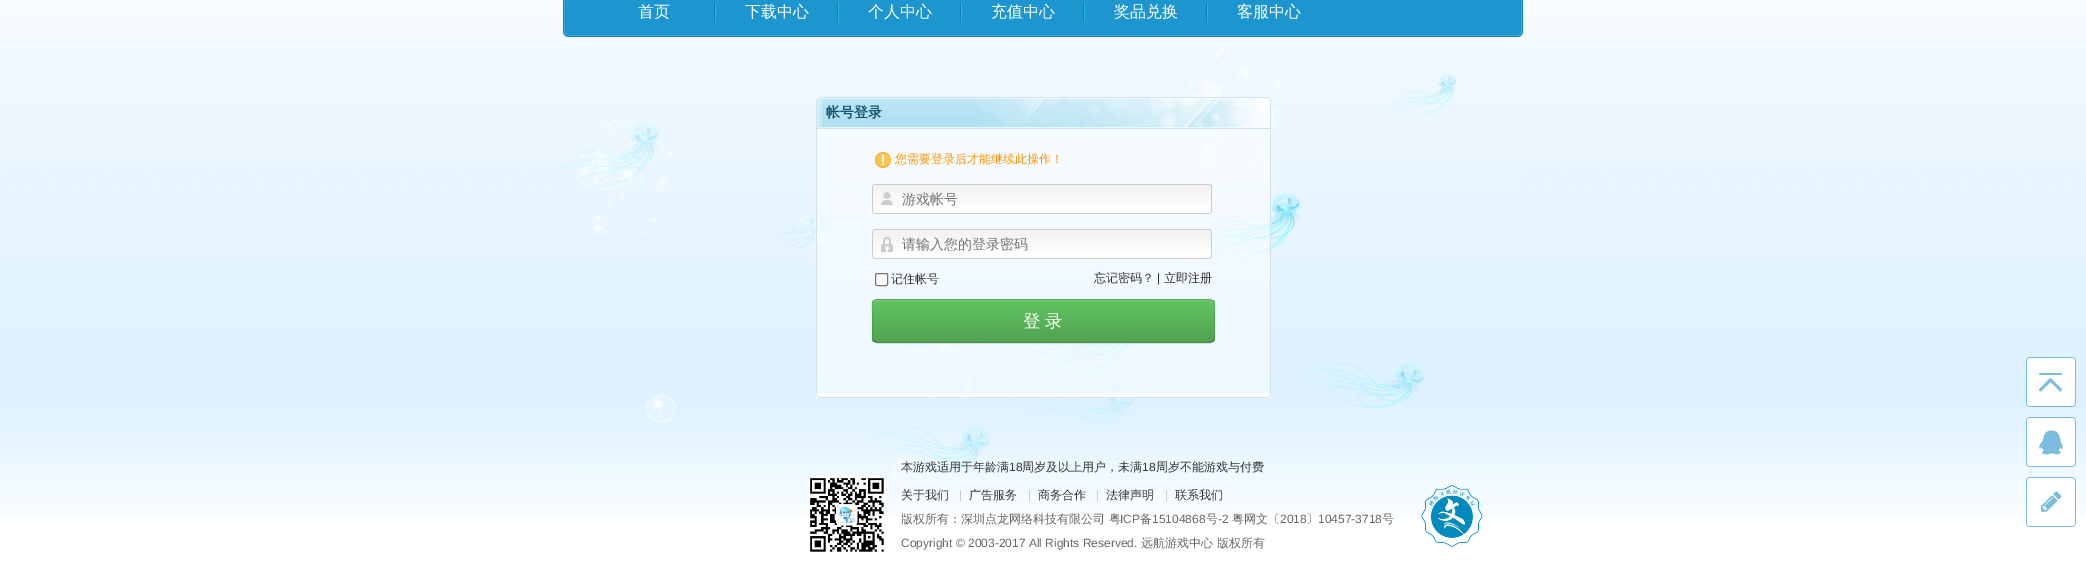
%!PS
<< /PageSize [2086 567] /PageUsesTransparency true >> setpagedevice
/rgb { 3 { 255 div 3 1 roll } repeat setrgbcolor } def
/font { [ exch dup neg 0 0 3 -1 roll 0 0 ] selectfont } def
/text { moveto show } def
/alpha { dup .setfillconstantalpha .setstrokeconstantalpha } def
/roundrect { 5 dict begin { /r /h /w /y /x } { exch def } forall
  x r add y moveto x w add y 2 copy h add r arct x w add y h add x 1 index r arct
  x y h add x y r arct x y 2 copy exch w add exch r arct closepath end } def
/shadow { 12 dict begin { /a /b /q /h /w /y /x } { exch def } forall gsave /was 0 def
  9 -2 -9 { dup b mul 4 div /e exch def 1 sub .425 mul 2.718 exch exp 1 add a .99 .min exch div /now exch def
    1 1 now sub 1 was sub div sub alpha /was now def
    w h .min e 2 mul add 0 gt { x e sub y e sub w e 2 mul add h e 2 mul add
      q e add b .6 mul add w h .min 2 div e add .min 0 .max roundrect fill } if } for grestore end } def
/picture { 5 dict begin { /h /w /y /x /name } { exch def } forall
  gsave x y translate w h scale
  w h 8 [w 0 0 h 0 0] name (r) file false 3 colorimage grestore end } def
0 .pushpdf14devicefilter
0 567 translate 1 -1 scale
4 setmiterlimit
255 255 255 rgb
0 0 2086 567 rectfill
(img_01.rgb) 0 0 2086 517 picture
(img_02.rgb) 559 48 968 438 picture
(img_03.rgb) 563 0 960 37 picture
(img_04.rgb) 714 2 2 20 picture
(img_04.rgb) 837 2 2 20 picture
(img_04.rgb) 960 2 2 20 picture
(img_04.rgb) 1083 2 2 20 picture
(img_04.rgb) 1206 2 2 20 picture
(img_05.rgb) 822 97 449 31 picture
(img_06.rgb) 816 97 6 31 picture
209 226 238 rgb
816 128 455 1 rectfill
0.5 alpha
255 255 255 rgb
817 129 453 264 rectfill
1 alpha
209 226 238 rgb
1270 129 1 264 rectfill
816 129 1 264 rectfill
(img_07.rgb) 875 152 16 16 picture
(img_09.rgb) 872 184 340 30 picture
(img_08.rgb) 881 192 12 13 picture
(img_11.rgb) 872 229 340 30 picture
(img_10.rgb) 881 237 12 15 picture
255 255 255 rgb
875.5 273.5 12 12 1.5 roundrect gsave fill grestore
118 118 118 rgb
stroke
0 0 0 rgb
872 300 343 44 6 1 0.05 shadow
91 183 91 rgb
872 299 343 44 6 roundrect fill
gsave
872 299 343 44 6 roundrect clip newpath
gsave 872 300 moveto 343 0 rlineto 0 42 rlineto -343 0 rlineto closepath clip newpath
<< /ShadingType 2 /ColorSpace /DeviceRGB /Coords [1044 300 1044 342] /Extend [true true] /Function << /FunctionType 2 /Domain [0 1] /C0 [0.384 0.769 0.384] /C1 [0.318 0.639 0.318] /N 1 >> >> shfill grestore
grestore
129 208 129 rgb
878 301 moveto 331 0 rlineto 3 0 5 2 5 5 rcurveto 0 -3 -2 -6 -5 -6 rcurveto -331 0 rlineto -3 0 -5 3 -5 6 rcurveto 0 -3 2 -5 5 -5 rcurveto closepath fill
0.25 alpha
0 0 0 rgb
1213 341 moveto -1 1 -2.5 1.5 -4 1.5 rcurveto -331 0 rlineto -1.5 0 -3 -0.5 -4 -1.5 rcurveto stroke
0.1 alpha
874 341 moveto -2.5 -2.5 -1.5 -6.5 -1.5 -9.5 rcurveto 0 -16 rlineto 0 -4 -2.5 -16 5.5 -16 rcurveto 331 0 rlineto 8 0 5.5 12 5.5 16 rcurveto 0 16 rlineto 0 3 1 7 -1.5 9.5 rcurveto stroke
1 alpha
(img_12.rgb) 820 393 451 5 picture
(img_13.rgb) 816 393 4 5 picture
(img_14.rgb) 2026 417 50 50 picture
(img_15.rgb) 808 476 78 76 picture
(img_16.rgb) 1421 485 62 62 picture
(img_17.rgb) 2026 477 50 50 picture
(img_18.rgb) 2026 357 50 50 picture
/WenQuanYiZenHei-Medium 16 font
255 255 255 rgb
(首页) 638 17 text
(下载中心) 745 17 text
(个人中心) 868 17 text
(充值中心) 991 17 text
(奖品兑换) 1114 17 text
(客服中心) 1237 17 text
/WenQuanYiZenHei-Bold 14 font
17 82 115 rgb
(帐号登录) 826 117 text
/WenQuanYiZenHei-Medium 12 font
248 148 6 rgb
(您需要登录后才能继续此操作！) 895 163 text
/WenQuanYiZenHei-Medium 14 font
117 117 117 rgb
(游戏帐号) 902 204 text
(请输入您的登录密码) 902 249 text
/WenQuanYiZenHei-Medium 12 font
51 51 51 rgb
(记住帐号) 891 283 text
(忘记密码？) 1094 282 text
/LiberationSans-Regular 12 font
(|) 1157 282 text
/WenQuanYiZenHei-Medium 12 font
(立即注册) 1164 282 text
/WenQuanYiZenHei-Medium 17.5 font
255 255 255 rgb
1023 327 moveto -1 0 32 (登 录) widthshow
/WenQuanYiZenHei-Medium 12 font
51 51 51 rgb
(本游戏适用于年龄满) 901 471 text
/LiberationSans-Regular 12 font
(18) 1009 471 text
/WenQuanYiZenHei-Medium 12 font
(周岁及以上用户，未满) 1022 471 text
/LiberationSans-Regular 12 font
(18) 1142 471 text
/WenQuanYiZenHei-Medium 12 font
(周岁不能游戏与付费) 1156 471 text
(关于我们) 901 499 text
/LiberationSans-Regular 12 font
204 204 204 rgb
(|) 959 499 text
/WenQuanYiZenHei-Medium 12 font
51 51 51 rgb
(广告服务) 969 499 text
/LiberationSans-Regular 12 font
204 204 204 rgb
(|) 1028 499 text
/WenQuanYiZenHei-Medium 12 font
51 51 51 rgb
(商务合作) 1038 499 text
/LiberationSans-Regular 12 font
204 204 204 rgb
(|) 1096 499 text
/WenQuanYiZenHei-Medium 12 font
51 51 51 rgb
(法律声明) 1106 499 text
/LiberationSans-Regular 12 font
204 204 204 rgb
(|) 1165 499 text
/WenQuanYiZenHei-Medium 12 font
51 51 51 rgb
(联系我们) 1175 499 text
102 102 102 rgb
(版权所有：深圳点龙网络科技有限公司 粤) 901 523 text
/LiberationSans-Regular 12 font
(ICP) 1120 523 text
/WenQuanYiZenHei-Medium 12 font
(备) 1140 523 text
/LiberationSans-Regular 12 font
(15104868) 1152 523 text
/WenQuanYiZenHei-Medium 12 font
(号) 1206 523 text
/LiberationSans-Regular 12 font
(-2) 1218 523 text
/WenQuanYiZenHei-Medium 12 font
(粤网文〔) 1232 523 text
/LiberationSans-Regular 12 font
(2018) 1280 523 text
/WenQuanYiZenHei-Medium 12 font
(〕) 1306 523 text
/LiberationSans-Regular 12 font
(10457-3718) 1318 523 text
/WenQuanYiZenHei-Medium 12 font
(号) 1382 523 text
/LiberationSans-Regular 12 font
(Copyright © 2003-2017 All Rights Reserved.) 901 547 text
/WenQuanYiZenHei-Medium 12 font
(远航游戏中心 版权所有) 1141 547 text
.poppdf14devicefilter showpage
